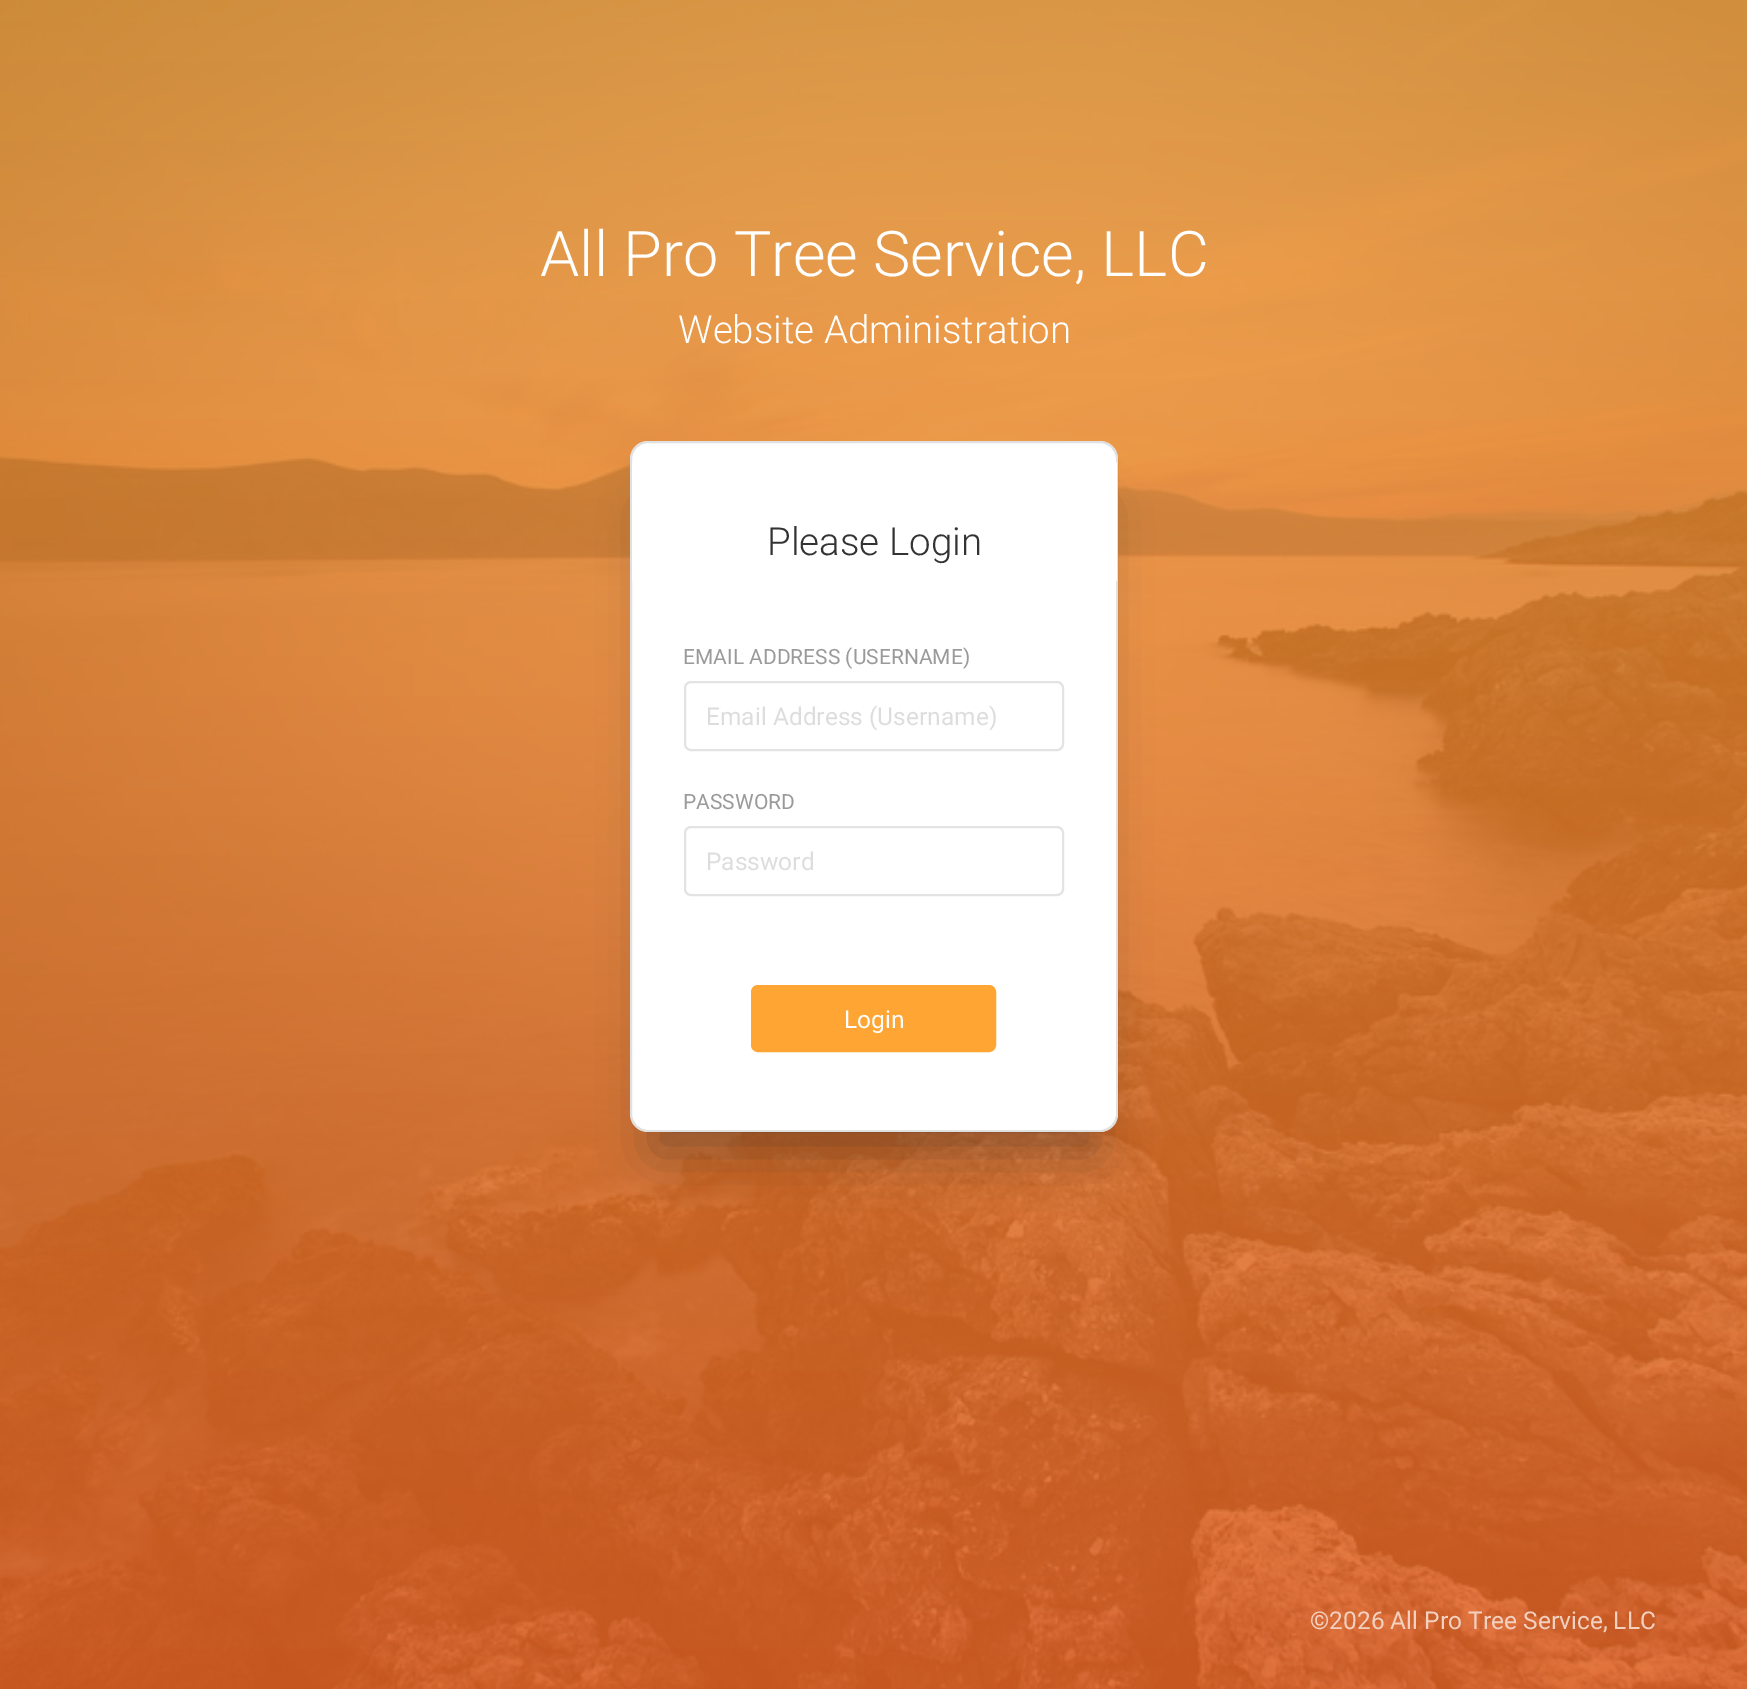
%!PS
<< /PageSize [1747 1689] /PageUsesTransparency true >> setpagedevice
/rgb { 3 { 255 div 3 1 roll } repeat setrgbcolor } def
/font { [ exch dup neg 0 0 3 -1 roll 0 0 ] selectfont } def
/text { moveto show } def
/alpha { dup .setfillconstantalpha .setstrokeconstantalpha } def
/roundrect { 5 dict begin { /r /h /w /y /x } { exch def } forall
  x r add y moveto x w add y 2 copy h add r arct x w add y h add x 1 index r arct
  x y h add x y r arct x y 2 copy exch w add exch r arct closepath end } def
/shadow { 12 dict begin { /a /b /q /h /w /y /x } { exch def } forall gsave /was 0 def
  9 -2 -9 { dup b mul 4 div /e exch def 1 sub .425 mul 2.718 exch exp 1 add a .99 .min exch div /now exch def
    1 1 now sub 1 was sub div sub alpha /was now def
    w h .min e 2 mul add 0 gt { x e sub y e sub w e 2 mul add h e 2 mul add
      q e add b .6 mul add w h .min 2 div e add .min 0 .max roundrect fill } if } for grestore end } def
/picture { 5 dict begin { /h /w /y /x /name } { exch def } forall
  gsave x y translate w h scale
  w h 8 [w 0 0 h 0 0] name (r) file false 3 colorimage grestore end } def
0 .pushpdf14devicefilter
0 1689 translate 1 -1 scale
4 setmiterlimit
255 255 255 rgb
0 0 1747 1689 rectfill
(img_01.rgb) 0 0 1747 1689 picture
40 40 40 rgb
653 508 443 645 0 26 0.4 shadow
255 255 255 rgb
630 441 488 691 18 roundrect fill
0.12 alpha
0 0 0 rgb
2 setlinewidth
631 442 486 689 17 roundrect stroke
1 alpha
255 255 255 rgb
637 460 moveto 475 0 rlineto 3 0 5 2 5 5 rcurveto 0 116 rlineto -485 0 rlineto 0 -116 rlineto 0 -3 2 -5 5 -5 rcurveto closepath fill
227 227 227 rgb
685 682 378 68 6 roundrect stroke
685 827 378 68 6 roundrect stroke
255 165 52 rgb
752 986 243 65 6 roundrect gsave fill grestore
stroke
/Roboto-Light 63 font
255 255 255 rgb
(All Pro Tree Service, LLC) 540 276 text
/Roboto-Light 38.5 font
(Website Administration) 678 343 text
51 51 51 rgb
(Please Login) 767 555 text
/Roboto-Regular 21 font
154 154 154 rgb
(EMAIL ADDRESS \(USERNAME\)) 683 664 text
gsave
707 702 334 28 rectclip
/Roboto-Regular 24.5 font
221 221 221 rgb
(Email Address \(Username\)) 706 725 text
grestore
(PASSWORD) 683 809 text
/Roboto-Regular 24.5 font
221 221 221 rgb
(Password) 706 870 text
255 255 255 rgb
(Login) 844 1028 text
242 209 193 rgb
(©2026 All Pro Tree Service, LLC) 1310 1629 text
.poppdf14devicefilter showpage
